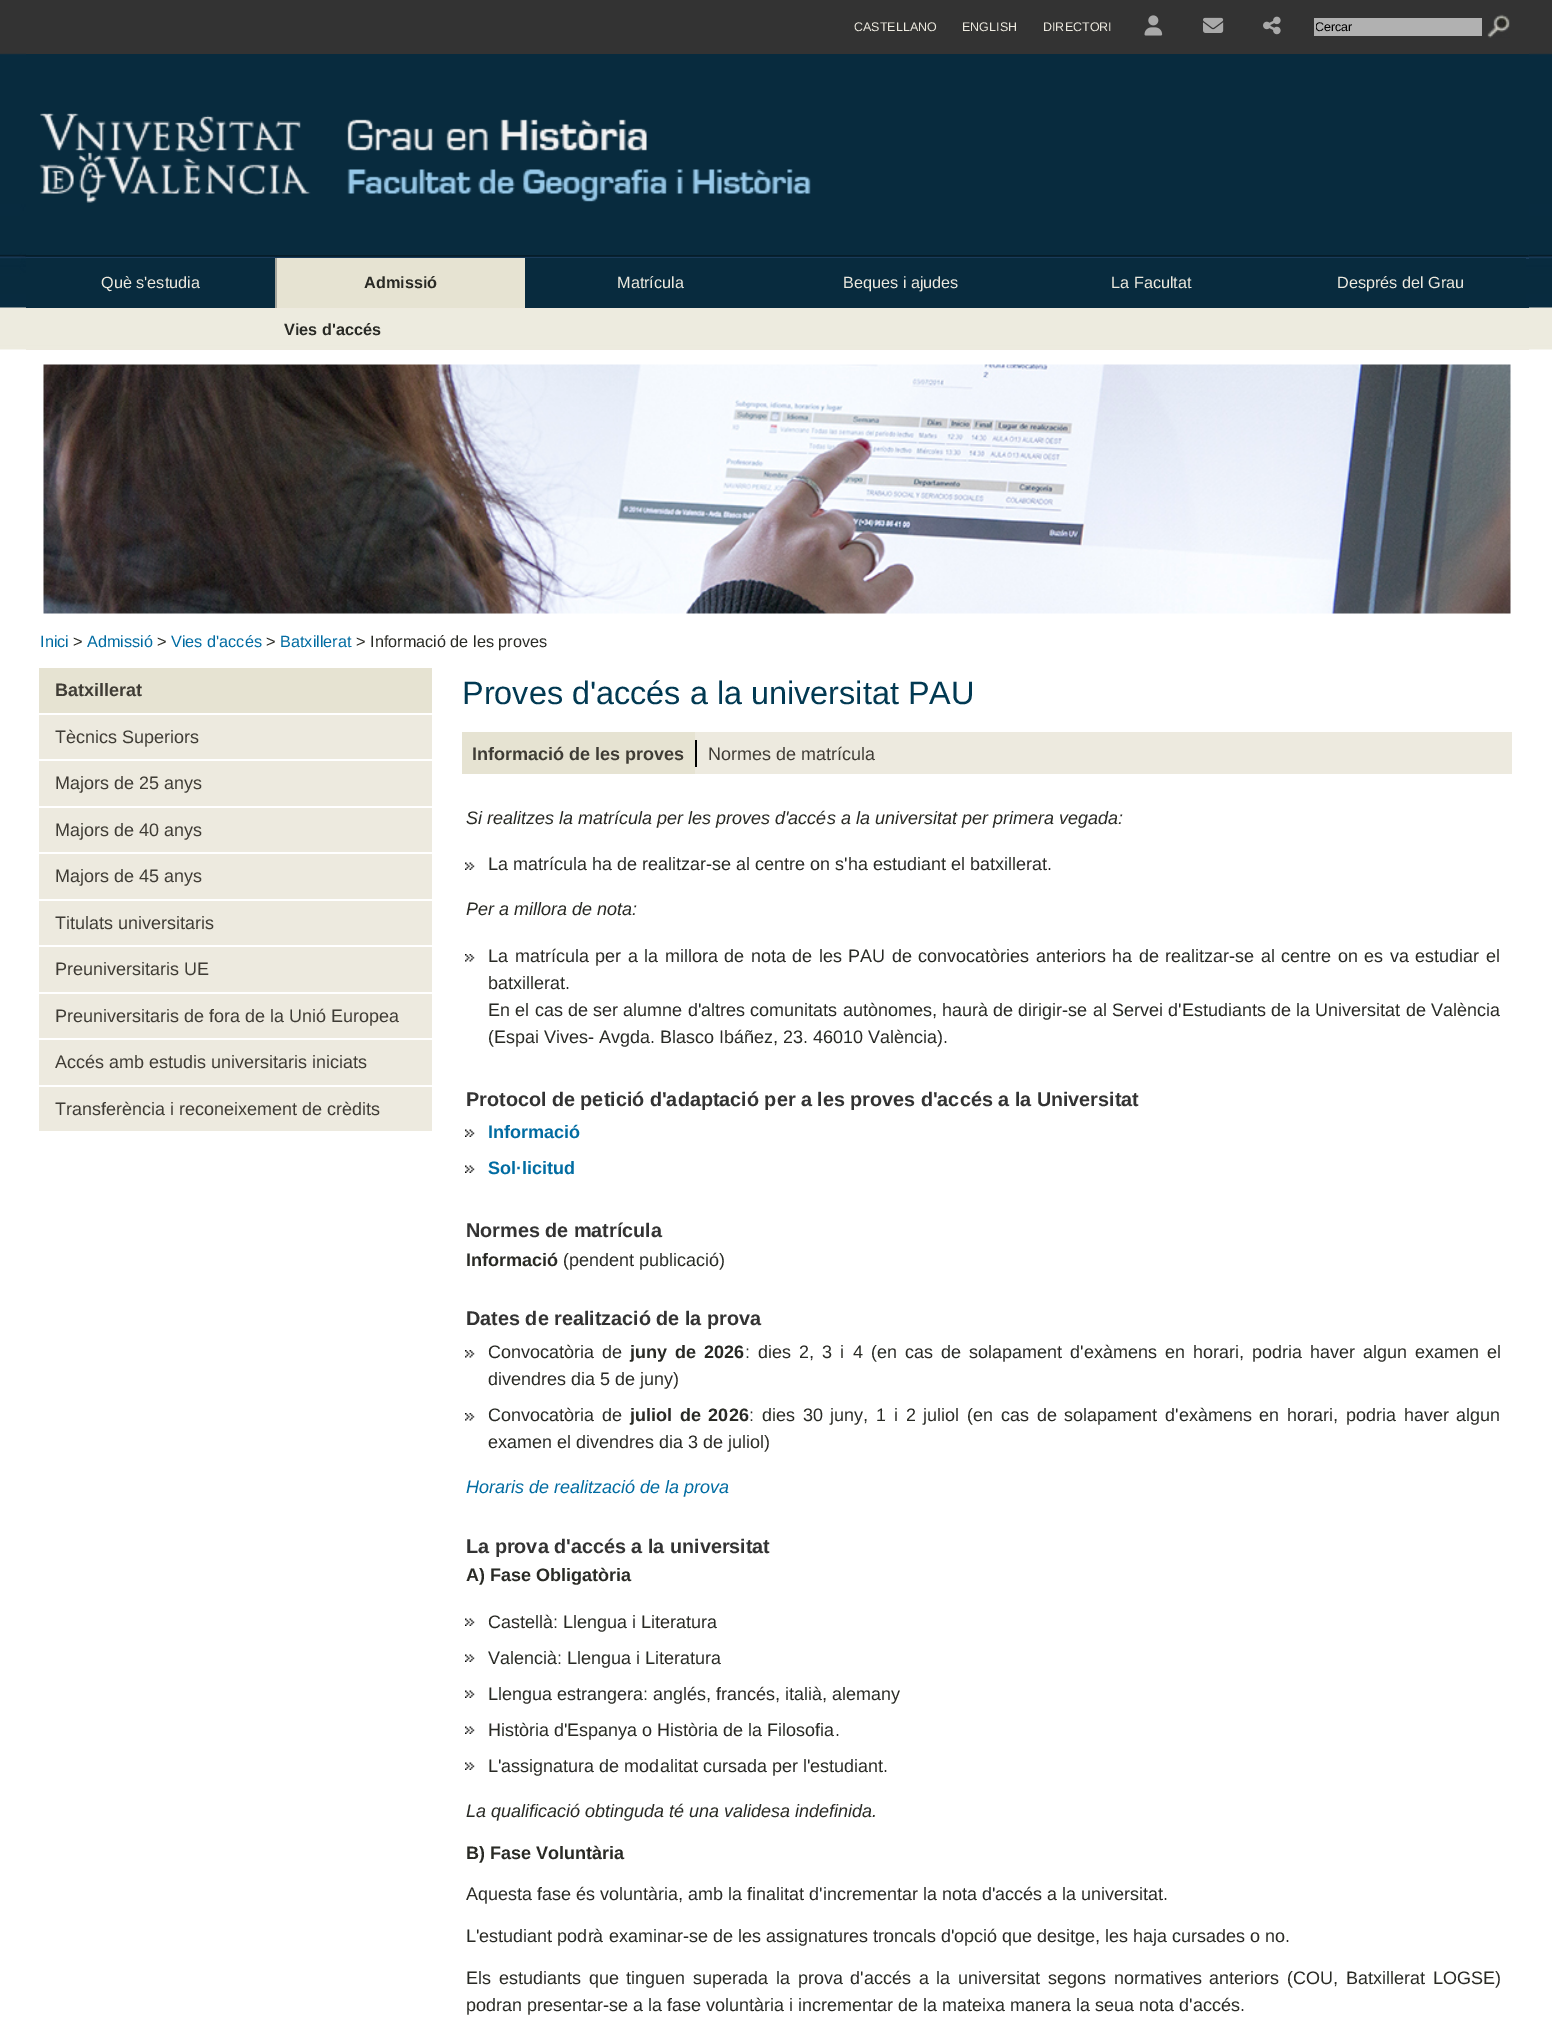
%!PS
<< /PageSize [1552 2030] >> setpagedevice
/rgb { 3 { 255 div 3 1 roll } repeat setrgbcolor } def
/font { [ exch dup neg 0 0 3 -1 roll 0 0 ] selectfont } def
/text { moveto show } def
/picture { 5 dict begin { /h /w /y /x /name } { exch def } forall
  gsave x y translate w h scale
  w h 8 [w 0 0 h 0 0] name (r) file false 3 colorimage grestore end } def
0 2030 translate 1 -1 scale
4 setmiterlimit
255 255 255 rgb
0 0 1552 2030 rectfill
(img_01.rgb) 0 0 1552 350 picture
51 51 51 rgb
26 53 1503 1 rectfill
(img_02.rgb) 1144 15 19 21 picture
(img_03.rgb) 1203 17 21 16 picture
(img_04.rgb) 1263 16 18 19 picture
177 177 177 rgb
1314 18 168 18 rectfill
(img_05.rgb) 1487 14 23 24 picture
8 43 62 rgb
26 54 1503 203 rectfill
(img_06.rgb) 25 255 1504 2 picture
(img_07.rgb) 39 113 772 90 picture
1526 307 3 1 rectfill
26 59 90 rgb
26 257 1503 2 rectfill
8 43 62 rgb
26 258 249 50 rectfill
230 227 210 rgb
277 258 248 50 rectfill
166 166 156 rgb
275 258 2 50 rectfill
8 43 62 rgb
525 258 1001 50 rectfill
237 234 223 rgb
26 349 1503 1 rectfill
(img_08.rgb) 43 364 1468 250 picture
39 715 393 416 rectfill
230 227 210 rgb
39 668 393 45 rectfill
255 255 255 rgb
39 759 393 2 rectfill
39 806 393 2 rectfill
39 852 393 2 rectfill
39 899 393 2 rectfill
39 945 393 2 rectfill
39 992 393 2 rectfill
39 1038 393 2 rectfill
39 1085 393 2 rectfill
237 234 223 rgb
695 732 817 42 rectfill
230 227 210 rgb
462 732 233 42 rectfill
0 0 0 rgb
695 740 2 27 rectfill
(img_09.rgb) 465 862 10 8 picture
(img_10.rgb) 465 954 10 8 picture
(img_09.rgb) 465 1129 10 8 picture
(img_09.rgb) 465 1165 10 8 picture
(img_10.rgb) 465 1350 10 8 picture
(img_10.rgb) 465 1413 10 8 picture
(img_09.rgb) 465 1618 10 8 picture
(img_09.rgb) 465 1654 10 8 picture
(img_09.rgb) 465 1690 10 8 picture
(img_09.rgb) 465 1726 10 8 picture
(img_09.rgb) 465 1762 10 8 picture
/LiberationSans-Regular 12.5 font
237 234 223 rgb
(CASTELLANO) 854 31 text
(ENGLISH) 962 31 text
(DIRECTORI) 1043 31 text
gsave
1316 18 166 18 rectclip
0 0 0 rgb
(Cercar) 1315 31 text
grestore
/LiberationSans-Regular 16.25 font
(Què s'estudia) 101 288 text
/LiberationSans-Bold 16.25 font
41 42 37 rgb
(Admissió) 364 288 text
/LiberationSans-Regular 16.25 font
237 234 223 rgb
(Matrícula) 617 288 text
(Beques i ajudes) 843 288 text
(La Facultat) 1111 288 text
(Després del Grau) 1337 288 text
/LiberationSans-Bold 16.25 font
41 42 37 rgb
(Vies d'accés) 284 335 text
/LiberationSans-Regular 16.25 font
1 108 162 rgb
(Inici) 40 647 text
41 42 37 rgb
(>) 73 647 text
1 108 162 rgb
(Admissió) 87 647 text
41 42 37 rgb
(>) 157 647 text
1 108 162 rgb
(Vies d'accés) 171 647 text
41 42 37 rgb
(>) 266 647 text
1 108 162 rgb
(Batxillerat) 280 647 text
41 42 37 rgb
(> Informació de les proves) 356 647 text
/LiberationSans-Bold 18 font
63 60 53 rgb
(Batxillerat) 55 696 text
/LiberationSans-Regular 18 font
(Tècnics Superiors) 55 743 text
(Majors de 25 anys) 55 789 text
(Majors de 40 anys) 55 836 text
(Majors de 45 anys) 55 882 text
(Titulats universitaris) 55 929 text
(Preuniversitaris UE) 55 975 text
(Preuniversitaris de fora de la Unió Europea) 55 1022 text
(Accés amb estudis universitaris iniciats) 55 1068 text
(Transferència i reconeixement de crèdits) 55 1115 text
/LiberationSans-Regular 32.4 font
1 57 82 rgb
(Proves d'accés a la universitat PAU) 462 704 text
/LiberationSans-Bold 18 font
63 60 53 rgb
(Informació de les proves) 472 760 text
/LiberationSans-Regular 18 font
(Normes de matrícula) 708 760 text
/LiberationSans-Italic 18 font
41 42 37 rgb
(Si realitzes la matrícula per les proves d'accés a la universitat per primera vegada:) 466 824 text
/LiberationSans-Regular 18 font
(La matrícula ha de realitzar-se al centre on s'ha estudiant el batxillerat.) 488 870 text
/LiberationSans-Italic 18 font
(Per a millora de nota:) 466 915 text
/LiberationSans-Regular 18 font
488 962 moveto 1.5 0 32 (La matrícula per a la millora de nota de les PAU de convocatòries anteriors ha de realitzar-se al centre on es va estudiar el) widthshow
(batxillerat.) 488 989 text
488 1016 moveto 0.25 0 32 (En el cas de ser alumne d'altres comunitats autònomes, haurà de dirigir-se al Servei d'Estudiants de la Universitat de València) widthshow
(\(Espai Vives- Avgda. Blasco Ibáñez, 23. 46010 València\).) 488 1043 text
/LiberationSans-Bold 19.8 font
51 51 51 rgb
(Protocol de petició d'adaptació per a les proves d'accés a la Universitat) 466 1106 text
/LiberationSans-Bold 18 font
1 108 162 rgb
(Informació) 488 1138 text
(Sol·licitud) 488 1174 text
/LiberationSans-Bold 19.8 font
51 51 51 rgb
(Normes de matrícula) 466 1237 text
/LiberationSans-Bold 18 font
41 42 37 rgb
(Informació) 466 1266 text
/LiberationSans-Regular 18 font
(\(pendent publicació\)) 563 1266 text
/LiberationSans-Bold 19.8 font
51 51 51 rgb
(Dates de realització de la prova) 466 1325 text
/LiberationSans-Regular 18 font
41 42 37 rgb
488 1358 moveto 3.1 0 32 (Convocatòria de) widthshow
/LiberationSans-Bold 18 font
630 1358 moveto 3.1 0 32 (juny de 2026) widthshow
/LiberationSans-Regular 18 font
745 1358 moveto 3.1 0 32 (: dies 2, 3 i 4 \(en cas de solapament d'exàmens en horari, podria haver algun examen el) widthshow
(divendres dia 5 de juny\)) 488 1385 text
488 1421 moveto 2.75 0 32 (Convocatòria de) widthshow
/LiberationSans-Bold 18 font
630 1421 moveto 2.75 0 32 (juliol de 2026) widthshow
/LiberationSans-Regular 18 font
749 1421 moveto 2.75 0 32 (: dies 30 juny, 1 i 2 juliol \(en cas de solapament d'exàmens en horari, podria haver algun) widthshow
(examen el divendres dia 3 de juliol\)) 488 1448 text
/LiberationSans-Italic 18 font
1 108 162 rgb
(Horaris de realització de la prova) 466 1493 text
/LiberationSans-Bold 19.8 font
51 51 51 rgb
(La prova d'accés a la universitat) 466 1553 text
/LiberationSans-Bold 18 font
41 42 37 rgb
(A\) Fase Obligatòria) 466 1581 text
/LiberationSans-Regular 18 font
(Castellà: Llengua i Literatura) 488 1628 text
(Valencià: Llengua i Literatura) 488 1664 text
(Llengua estrangera: anglés, francés, italià, alemany) 488 1700 text
(Història d'Espanya o Història de la Filosofia.) 488 1736 text
(L'assignatura de modalitat cursada per l'estudiant.) 488 1772 text
/LiberationSans-Italic 18 font
(La qualificació obtinguda té una validesa indefinida.) 466 1817 text
/LiberationSans-Bold 18 font
(B\) Fase Voluntària) 466 1859 text
/LiberationSans-Regular 18 font
(Aquesta fase és voluntària, amb la finalitat d'incrementar la nota d'accés a la universitat.) 466 1900 text
(L'estudiant podrà examinar-se de les assignatures troncals d'opció que desitge, les haja cursades o no.) 466 1942 text
466 1984 moveto 2.75 0 32 (Els estudiants que tinguen superada la prova d'accés a la universitat segons normatives anteriors \(COU, Batxillerat LOGSE\)) widthshow
(podran presentar-se a la fase voluntària i incrementar de la mateixa manera la seua nota d'accés.) 466 2011 text
showpage
